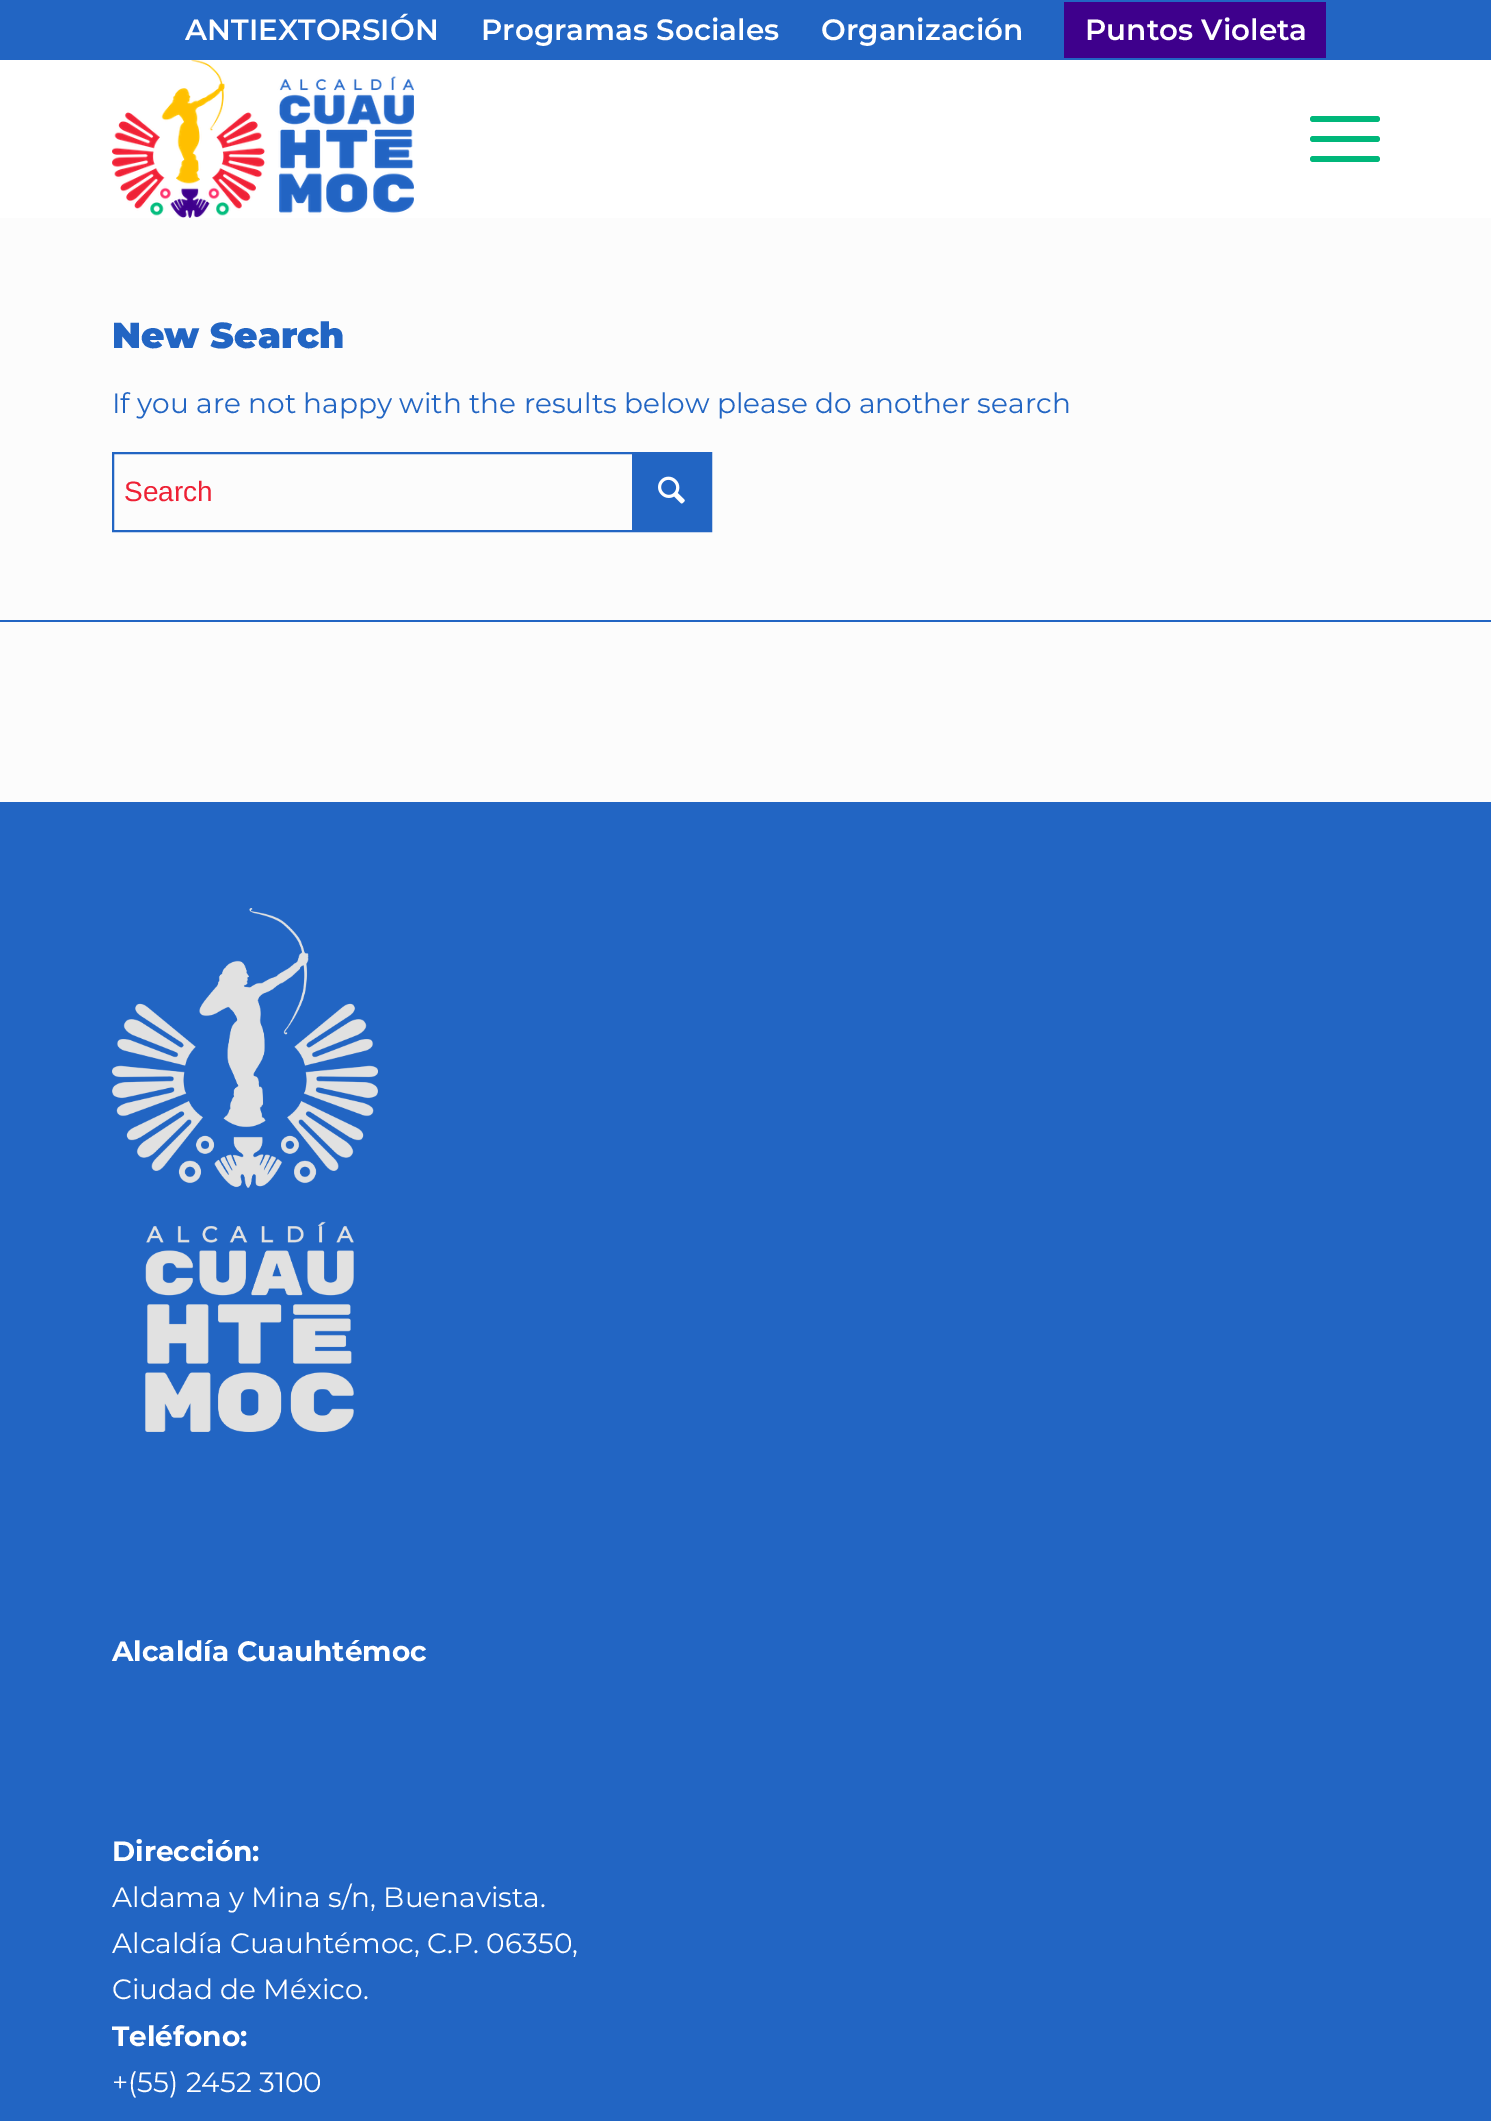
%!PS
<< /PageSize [1491 2121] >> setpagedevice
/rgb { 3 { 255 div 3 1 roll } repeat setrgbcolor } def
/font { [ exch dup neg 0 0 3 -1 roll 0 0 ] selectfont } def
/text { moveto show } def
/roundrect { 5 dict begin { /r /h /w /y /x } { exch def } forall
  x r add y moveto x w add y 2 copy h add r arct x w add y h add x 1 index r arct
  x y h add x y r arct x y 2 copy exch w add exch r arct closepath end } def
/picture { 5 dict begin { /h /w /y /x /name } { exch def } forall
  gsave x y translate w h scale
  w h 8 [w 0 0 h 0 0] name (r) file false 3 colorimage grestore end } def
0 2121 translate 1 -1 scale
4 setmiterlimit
252 252 252 rgb
0 0 1491 2121 rectfill
34 101 195 rgb
0 0 1491 60 rectfill
62 0 140 rgb
1064 2 262 56 rectfill
255 255 255 rgb
0 60 1491 158 rectfill
(img_01.rgb) 112 60 302 158 picture
0 183 122 rgb
1310 136 70 6 3 roundrect fill
1310 116 70 6 3 roundrect fill
1310 156 70 6 3 roundrect fill
34 101 195 rgb
2 setlinewidth
113 453 598 78 rectstroke
632 454 78 76 rectfill
(img_02.rgb) 658 476 27 28 picture
0 620 1491 2 rectfill
0 802 1491 1319 rectfill
(img_03.rgb) 112 908 266 524 picture
/Montserrat-SemiBold 29.4 font
255 255 255 rgb
(ANTIEXTORSIÓN) 185 40 text
(Programas Sociales) 481 40 text
(Organización) 821 40 text
(Puntos Violeta) 1085 40 text
/Montserrat-Black 36 font
34 101 195 rgb
(New Search) 112 348 text
/Montserrat-Thin 28 font
(If you are not happy with the results below please do another search) 112 413 text
/LiberationSans-Regular 28 font
238 33 53 rgb
(Search) 124 501 text
/Montserrat-Bold 28 font
255 255 255 rgb
(Alcaldía Cuauhtémoc) 112 1661 text
(Dirección:) 112 1861 text
/Montserrat-Thin 28 font
(Aldama y Mina s/n, Buenavista.) 112 1907 text
(Alcaldía Cuauhtémoc, C.P. 06350,) 112 1953 text
(Ciudad de México.) 112 1999 text
/Montserrat-Bold 28 font
(Teléfono:) 112 2046 text
/Montserrat-Thin 28 font
(+\(55\) 2452 3100) 112 2092 text
showpage
